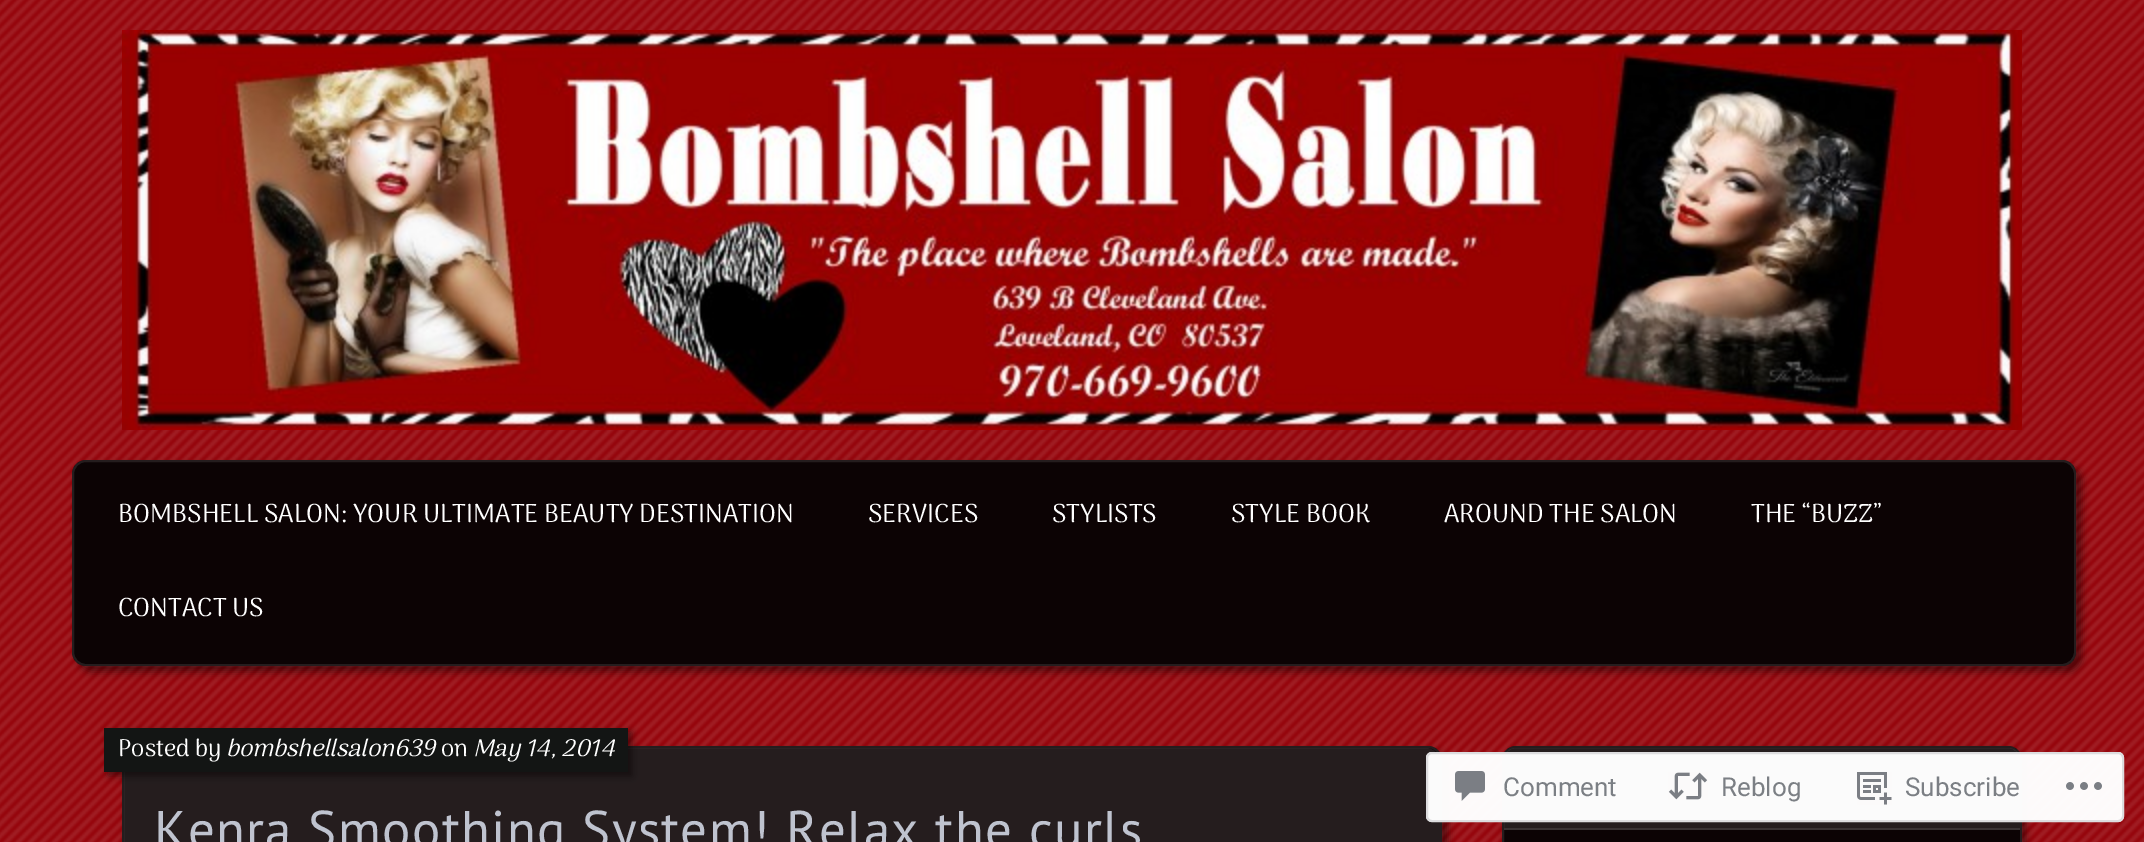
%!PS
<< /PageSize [2144 842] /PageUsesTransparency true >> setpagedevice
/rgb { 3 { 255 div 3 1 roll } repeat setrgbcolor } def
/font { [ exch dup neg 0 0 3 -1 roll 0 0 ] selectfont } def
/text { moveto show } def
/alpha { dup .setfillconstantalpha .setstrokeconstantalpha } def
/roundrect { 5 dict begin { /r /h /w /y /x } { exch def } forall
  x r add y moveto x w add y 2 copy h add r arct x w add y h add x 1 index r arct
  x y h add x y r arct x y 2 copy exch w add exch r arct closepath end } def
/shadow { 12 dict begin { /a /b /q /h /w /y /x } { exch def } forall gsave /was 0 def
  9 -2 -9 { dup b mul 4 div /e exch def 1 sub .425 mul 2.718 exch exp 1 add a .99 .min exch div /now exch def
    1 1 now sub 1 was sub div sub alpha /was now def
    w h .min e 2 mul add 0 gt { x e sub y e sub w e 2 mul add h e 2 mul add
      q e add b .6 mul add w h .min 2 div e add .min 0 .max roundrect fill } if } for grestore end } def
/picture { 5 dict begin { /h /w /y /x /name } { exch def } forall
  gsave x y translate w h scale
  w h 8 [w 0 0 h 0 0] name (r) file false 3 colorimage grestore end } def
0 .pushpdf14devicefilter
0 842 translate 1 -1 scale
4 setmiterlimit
149 4 11 rgb
0 0 2144 842 rectfill
(img_01.rgb) 0 0 2144 842 picture
(img_02.rgb) 122 30 1900 400 picture
0 0 0 rgb
78 466 2004 206 14 4 0.45 shadow
12 3 4 rgb
72 460 2004 206 14 roundrect fill
0.1 alpha
255 255 255 rgb
2 setlinewidth
73 461 2002 204 13 roundrect stroke
1 alpha
0 0 0 rgb
128 752 1320 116 14 4 0.45 shadow
12 3 4 rgb
122 746 1320 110 14 roundrect fill
0.1 alpha
255 255 255 rgb
123 747 1318 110 13 roundrect stroke
138 748 moveto 1288 0 rlineto 7.5 0 14 6.5 14 14 rcurveto 0 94 rlineto -1316 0 rlineto 0 -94 rlineto 0 -7.5 6.5 -14 14 -14 rcurveto closepath fill
1 alpha
0 0 0 rgb
108 732 524 44 0 3.5 0.45 shadow
19 21 20 rgb
104 728 524 44 rectfill
0 0 0 rgb
1506 750 520 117 14 3.5 0.45 shadow
12 3 4 rgb
1502 746 520 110 14 roundrect fill
0.1 alpha
255 255 255 rgb
1503 747 518 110 13 roundrect stroke
1516 748 moveto 492 0 rlineto 6.5 0 12 5.5 12 12 rcurveto 0 70 rlineto -516 0 rlineto 0 -70 rlineto 0 -6.5 5.5 -12 12 -12 rcurveto closepath fill
1 alpha
58 51 52 rgb
1504 828 516 2 rectfill
0.98 alpha
255 255 255 rgb
1426 752 698 70 6 roundrect fill
220 220 222 rgb
1427 753 696 68 5 roundrect stroke
1 alpha
(img_03.rgb) 1455 771 30 30 picture
(img_04.rgb) 1668 772 40 28 picture
(img_05.rgb) 1857 772 35 33 picture
(img_06.rgb) 2066 782 36 8 picture
/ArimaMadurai-Regular 26 font
255 255 255 rgb
(BOMBSHELL SALON: YOUR ULTIMATE BEAUTY DESTINATION) 118 522 text
(SERVICES) 868 522 text
(STYLISTS) 1052 522 text
(STYLE BOOK) 1231 522 text
(AROUND THE SALON) 1444 522 text
(THE “BUZZ”) 1751 522 text
(CONTACT US) 118 616 text
/ArimaMadurai-Regular 24 font
(Posted by) 118 756 text
/ArimaMadurai-Italic 24 font
(bombshellsalon639) 226 756 text
/ArimaMadurai-Regular 24 font
(on) 441 756 text
/ArimaMadurai-Italic 24 font
(May 14, 2014) 473 756 text
/PTSans-Regular 53 font
191 195 207 rgb
154 848 moveto 1.3 0 (Kenra Smoothing System! Relax the curls) ashow
/Roboto-Regular 26 font
123 127 132 rgb
(Comment) 1503 796 text
(Reblog) 1721 796 text
(Subscribe) 1905 796 text
.poppdf14devicefilter showpage
